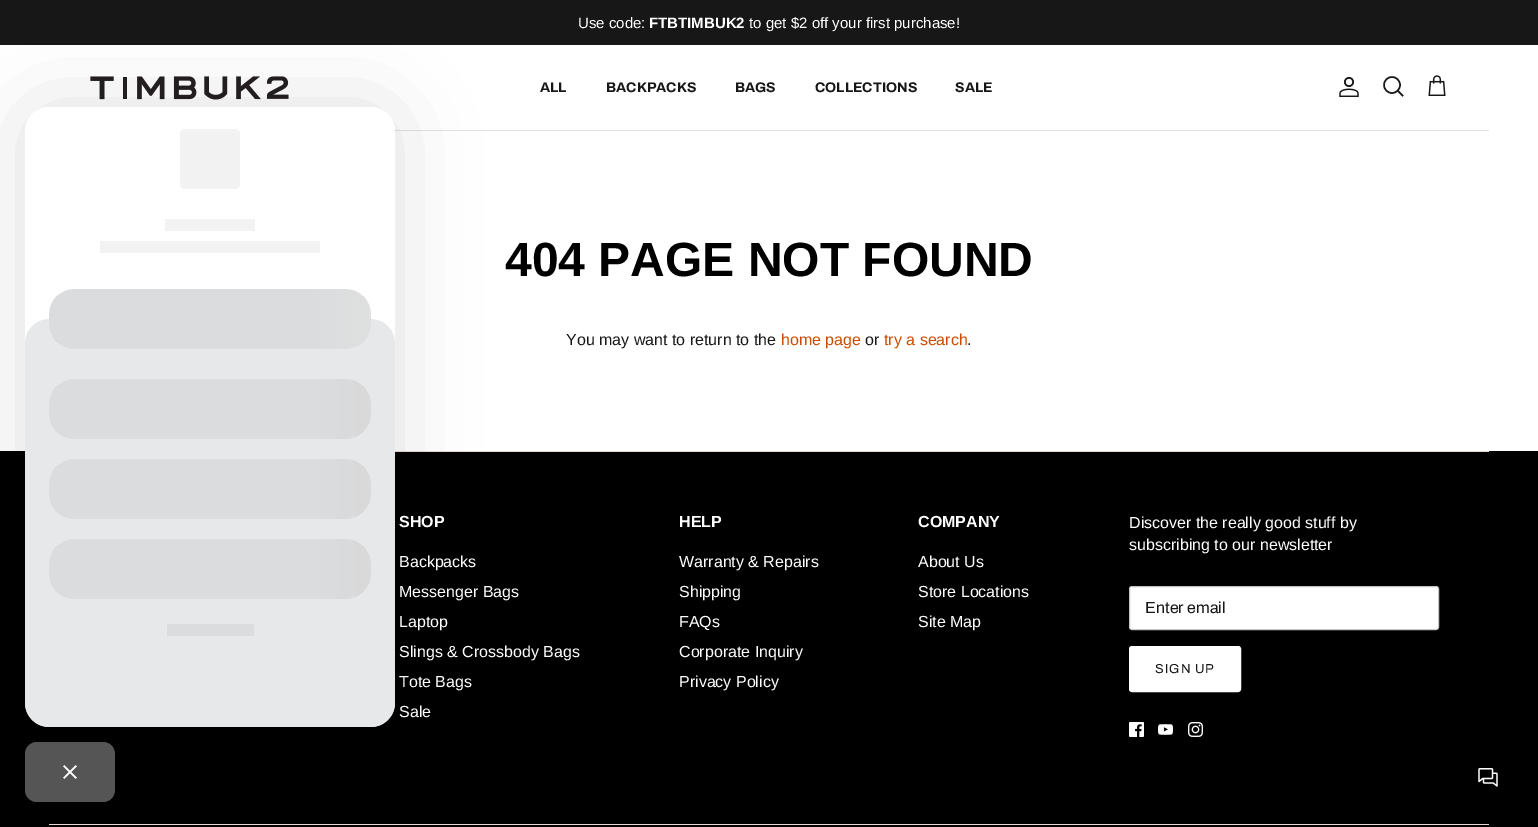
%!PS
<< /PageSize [1538 827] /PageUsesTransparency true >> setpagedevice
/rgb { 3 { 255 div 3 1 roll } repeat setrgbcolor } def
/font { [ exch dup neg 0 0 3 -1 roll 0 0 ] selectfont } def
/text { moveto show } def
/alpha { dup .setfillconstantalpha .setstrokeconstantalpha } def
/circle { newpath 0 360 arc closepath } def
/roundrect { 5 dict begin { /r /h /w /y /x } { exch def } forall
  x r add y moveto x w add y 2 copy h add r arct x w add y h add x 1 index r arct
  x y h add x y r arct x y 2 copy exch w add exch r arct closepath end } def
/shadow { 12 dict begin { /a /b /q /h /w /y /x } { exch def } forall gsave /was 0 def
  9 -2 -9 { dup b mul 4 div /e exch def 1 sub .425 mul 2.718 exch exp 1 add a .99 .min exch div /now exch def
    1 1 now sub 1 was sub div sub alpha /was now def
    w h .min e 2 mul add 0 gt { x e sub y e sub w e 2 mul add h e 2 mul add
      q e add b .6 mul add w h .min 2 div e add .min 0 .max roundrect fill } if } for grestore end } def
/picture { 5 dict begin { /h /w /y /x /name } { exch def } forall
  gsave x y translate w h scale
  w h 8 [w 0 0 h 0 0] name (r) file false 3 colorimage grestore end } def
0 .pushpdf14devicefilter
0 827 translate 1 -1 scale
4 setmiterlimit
255 255 255 rgb
0 0 1538 827 rectfill
23 23 23 rgb
0 0 1538 45 rectfill
223 227 232 rgb
394 130 1095 1 rectfill
(img_02.rgb) 90 76 199 24 picture
0 0 0 rgb
0 451 1538 376 rectfill
236 214 209 rgb
395 451 1094 1 rectfill
49 824 1440 1 rectfill
0 0 0 rgb
25 107 370 620 24 40 0.12 shadow
255 255 255 rgb
25 107 370 620 24 roundrect fill
(img_01.rgb) 25 129 370 598 picture
(img_03.rgb) 1339 77 20 20 picture
23 23 23 rgb
1.5 setlinewidth
1392 85 8 circle stroke
2 setlinecap
1398 91 moveto 4.5 4.5 rlineto stroke
(img_04.rgb) 1428 75 18 21 picture
255 255 255 rgb
1129.5 586.5 309 43 2.5 roundrect gsave fill grestore
197 197 197 rgb
1 setlinewidth
0 setlinecap
stroke
255 255 255 rgb
1129.5 646.5 111 45 2.5 roundrect gsave fill grestore
stroke
(img_05.rgb) 1129 722 15 15 picture
(img_06.rgb) 1158 724 15 11 picture
(img_07.rgb) 1188 722 15 15 picture
85 85 85 rgb
25 742 90 60 12 roundrect fill
(img_08.rgb) 63 765 14 14 picture
(img_09.rgb) 1478 768 20 19 picture
/LiberationSans-Regular 15 font
255 255 255 rgb
(Use code:) 578 28 text
/LiberationSans-Bold 15 font
(FTBTIMBUK2) 649 28 text
/LiberationSans-Regular 15 font
(to get $2 off your first purchase!) 749 28 text
/Archivo-Bold 14 font
23 23 23 rgb
(ALL) 540 92 text
(BACKPACKS) 606 92 text
(BAGS) 735 92 text
(COLLECTIONS) 815 92 text
(SALE) 955 92 text
/LiberationSans-Bold 48 font
0 0 0 rgb
(404 PAGE NOT FOUND) 505 276 text
/LiberationSans-Regular 16 font
23 23 23 rgb
(You may want to return to the) 566 345 text
204 75 0 rgb
(home page) 781 345 text
23 23 23 rgb
(or) 865 345 text
204 75 0 rgb
(try a search) 884 345 text
23 23 23 rgb
(.) 967 345 text
/LiberationSans-Bold 16 font
255 255 255 rgb
(SHOP) 399 527 text
/LiberationSans-Regular 16 font
(Backpacks) 399 567 text
(Messenger Bags) 399 597 text
(Laptop) 399 627 text
(Slings & Crossbody Bags) 399 657 text
(Tote Bags) 399 687 text
(Sale) 399 717 text
/LiberationSans-Bold 16 font
(HELP) 679 527 text
/LiberationSans-Regular 16 font
(Warranty & Repairs) 679 567 text
(Shipping) 679 597 text
(FAQs) 679 627 text
(Corporate Inquiry) 679 657 text
(Privacy Policy) 679 687 text
/LiberationSans-Bold 16 font
(COMPANY) 918 527 text
/LiberationSans-Regular 16 font
(About Us) 918 567 text
(Store Locations) 918 597 text
(Site Map) 918 627 text
(Discover the really good stuff by) 1129 528 text
(subscribing to our newsletter) 1129 550 text
/Archivo-Regular 16 font
23 23 23 rgb
(Enter email) 1145 613 text
/Archivo-Regular 13 font
1155 673 moveto 1 0 (SIGN UP) ashow
.poppdf14devicefilter showpage
